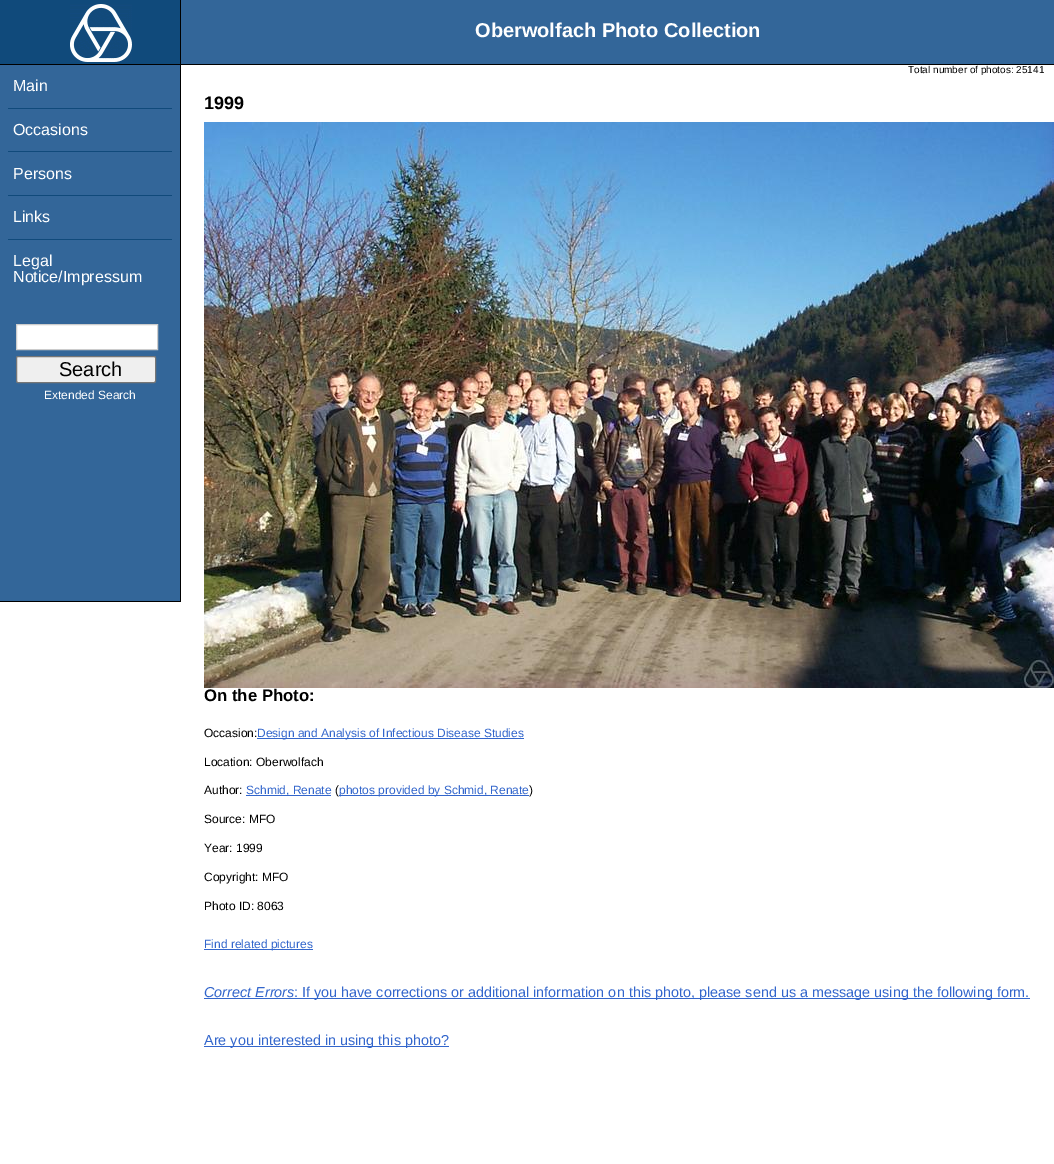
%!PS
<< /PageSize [1054 1164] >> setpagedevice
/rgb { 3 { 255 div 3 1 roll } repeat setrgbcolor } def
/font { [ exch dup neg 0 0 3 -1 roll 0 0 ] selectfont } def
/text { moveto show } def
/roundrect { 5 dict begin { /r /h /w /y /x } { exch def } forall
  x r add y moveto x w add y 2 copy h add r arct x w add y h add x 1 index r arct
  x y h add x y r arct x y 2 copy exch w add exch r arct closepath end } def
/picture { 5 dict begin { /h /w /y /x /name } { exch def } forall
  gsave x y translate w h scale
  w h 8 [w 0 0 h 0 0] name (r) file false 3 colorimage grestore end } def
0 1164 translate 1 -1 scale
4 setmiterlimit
255 255 255 rgb
0 0 1054 1164 rectfill
51 102 153 rgb
181 0 873 64 rectfill
0 0 0 rgb
0 64 1054 1 rectfill
16 74 123 rgb
0 0 180 64 rectfill
0 0 0 rgb
180 0 1 64 rectfill
(img_01.rgb) 70 4 62 58 picture
51 102 153 rgb
0 65 180 536 rectfill
0 0 0 rgb
180 65 1 537 rectfill
0 601 181 1 rectfill
16 74 123 rgb
8 108 164 1 rectfill
8 151 164 1 rectfill
8 195 164 1 rectfill
8 239 164 1 rectfill
255 255 255 rgb
16.5 324.5 moveto 141 0 rlineto 0 25 rlineto -141 0 rlineto closepath gsave fill grestore
204 204 204 rgb
stroke
239 239 239 rgb
16.5 356.5 139 26 1.5 roundrect gsave fill grestore
118 118 118 rgb
stroke
(img_02.rgb) 204 122 850 566 picture
51 102 204 rgb
257 738 267 1 rectfill
246 795 85 1 rectfill
339 795 190 1 rectfill
204 949 109 1 rectfill
204 998 826 1 rectfill
204 1046 245 1 rectfill
/LiberationSans-Bold 20 font
255 255 255 rgb
(Oberwolfach Photo Collection) 475 37 text
/LiberationSans-Regular 10 font
0 0 0 rgb
(Total number of photos: 25141) 908 73 text
/LiberationSans-Regular 16 font
255 255 255 rgb
(Main) 13 91 text
(Occasions) 13 135 text
(Persons) 13 179 text
(Links) 13 222 text
(Legal) 13 266 text
(Notice/Impressum) 13 282 text
/LiberationSans-Regular 20 font
0 0 0 rgb
(Search) 59 376 text
/LiberationSans-Regular 12 font
255 255 255 rgb
(Extended Search) 44 399 text
/LiberationSans-Bold 18 font
0 0 0 rgb
(1999) 204 109 text
/LiberationSans-Bold 16.75 font
(On the Photo:) 204 701 text
/LiberationSans-Regular 12 font
(Occasion:) 204 737 text
51 102 204 rgb
(Design and Analysis of Infectious Disease Studies) 257 737 text
0 0 0 rgb
(Location: Oberwolfach) 204 766 text
(Author:) 204 794 text
51 102 204 rgb
(Schmid, Renate) 246 794 text
0 0 0 rgb
(\() 335 794 text
51 102 204 rgb
(photos provided by Schmid, Renate) 339 794 text
0 0 0 rgb
(\)) 529 794 text
(Source: MFO) 204 823 text
(Year: 1999) 204 852 text
(Copyright: MFO) 204 881 text
(Photo ID: 8063) 204 910 text
51 102 204 rgb
(Find related pictures) 204 948 text
/LiberationSans-Italic 14.4 font
(Correct Errors) 204 997 text
/LiberationSans-Regular 14.4 font
(: If you have corrections or additional information on this photo, please send us a message using the following form.) 294 997 text
(Are you interested in using this photo?) 204 1045 text
showpage
